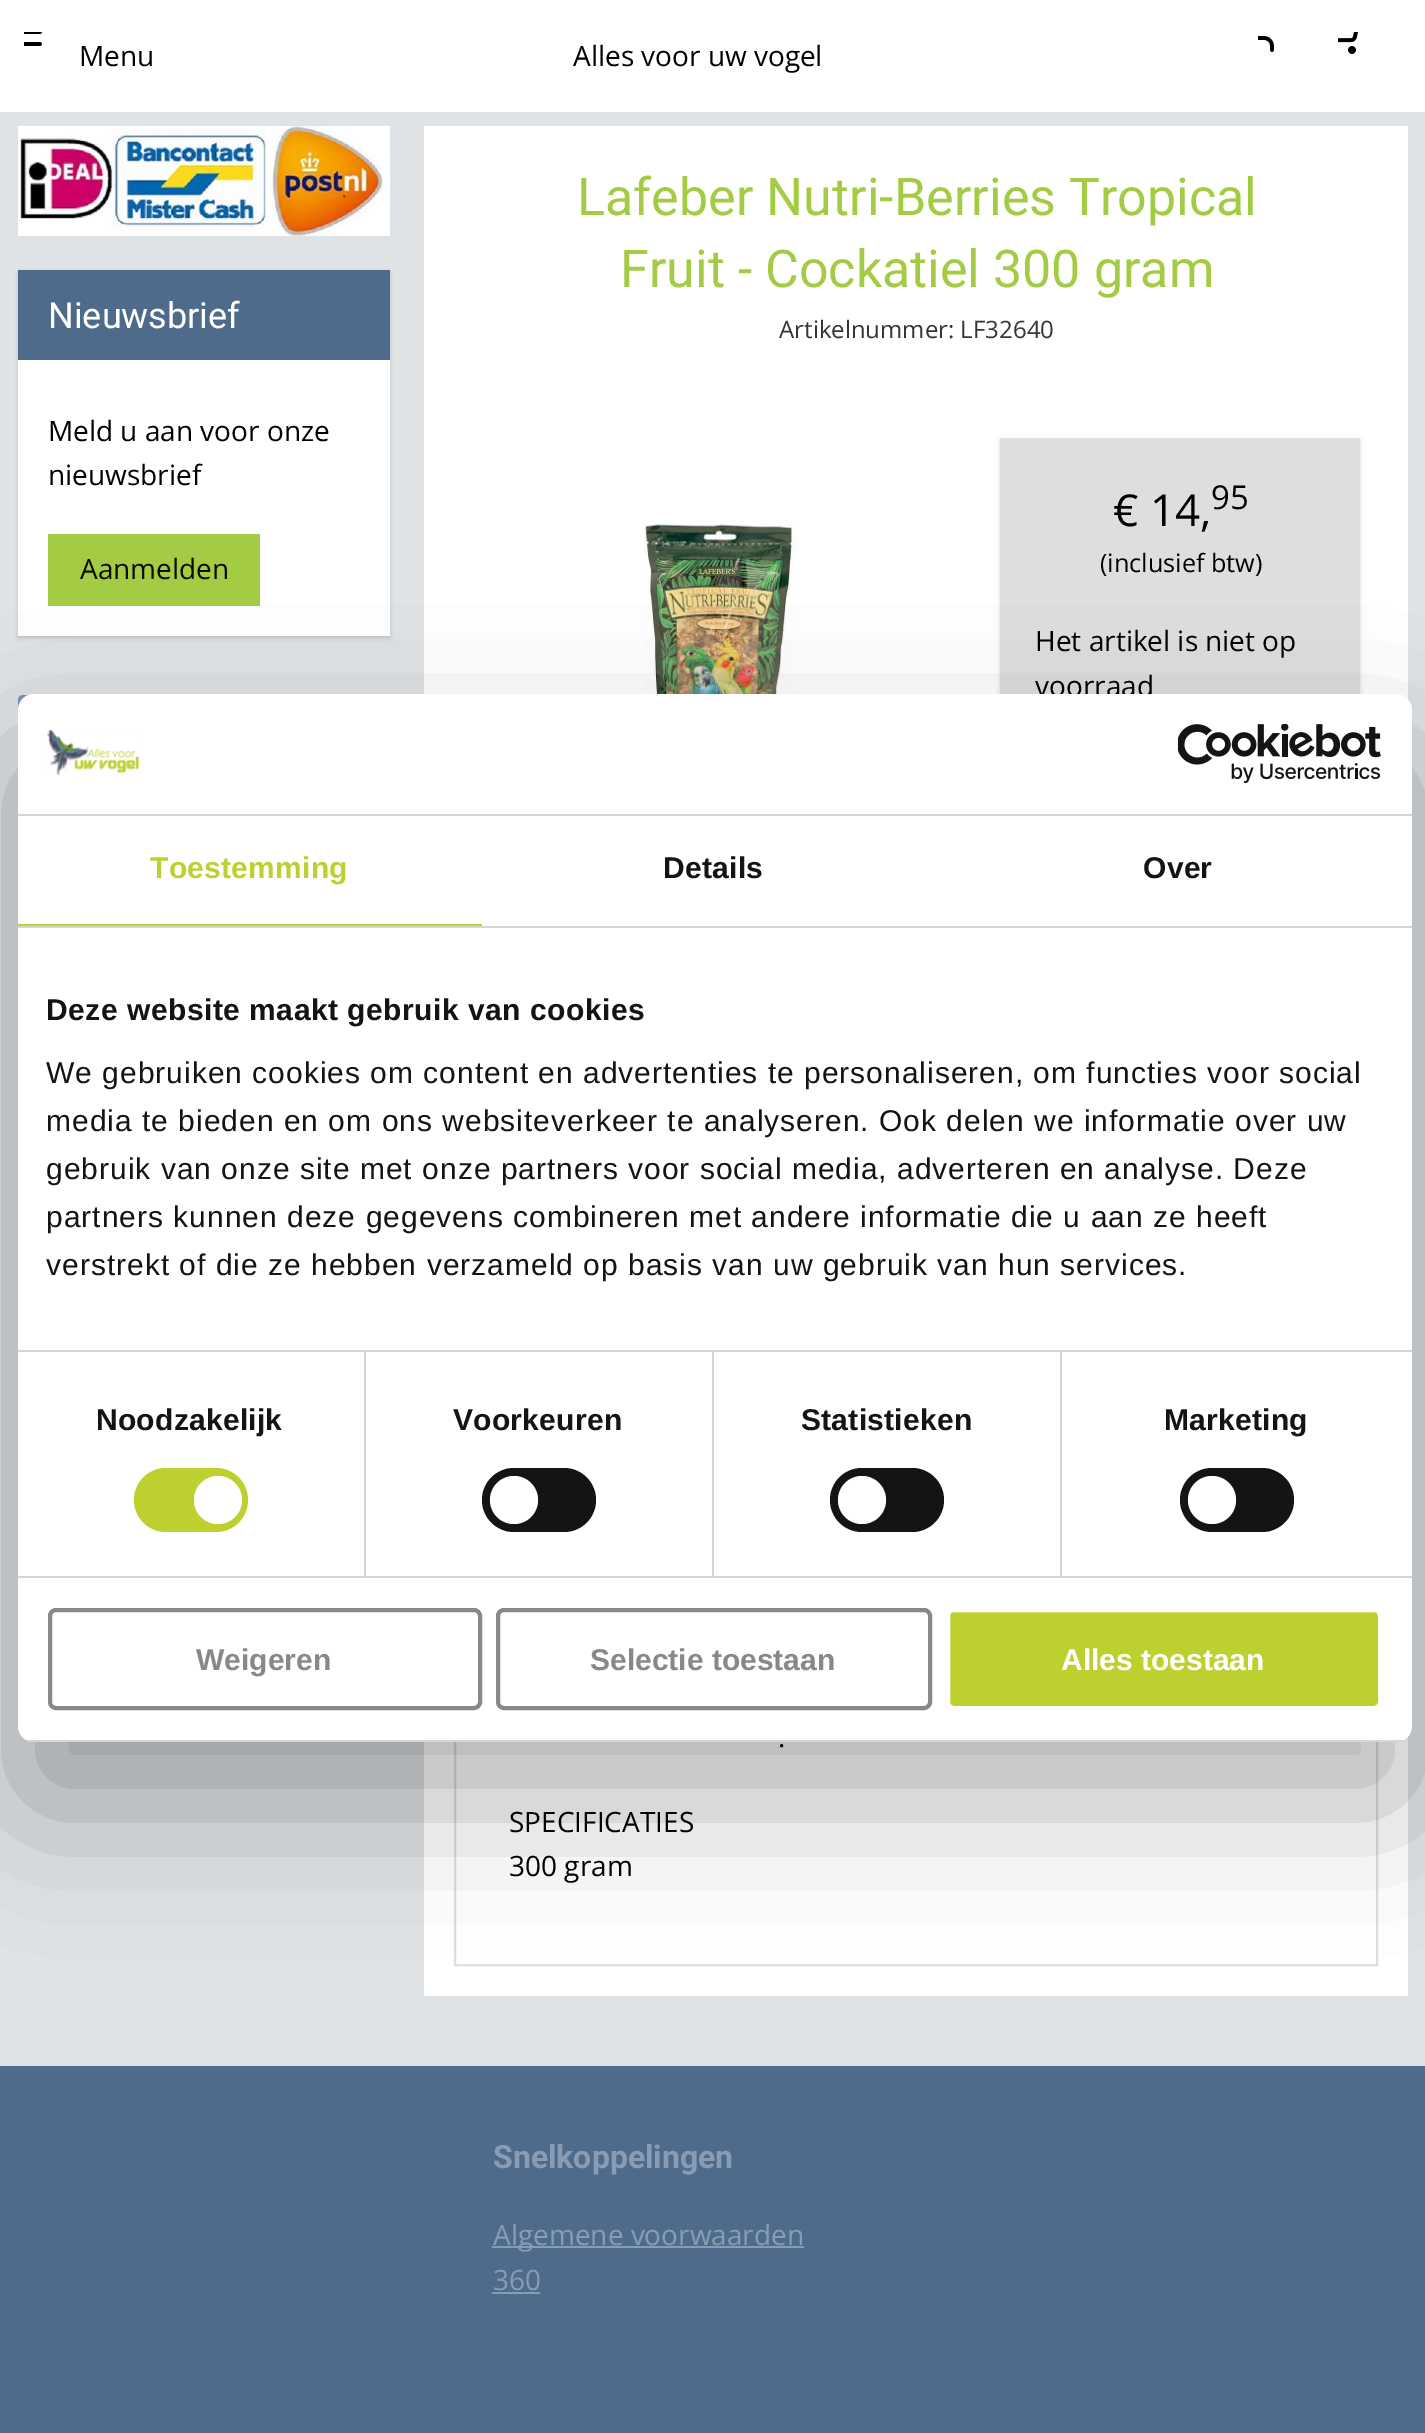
%!PS
<< /PageSize [1425 2433] /PageUsesTransparency true >> setpagedevice
/rgb { 3 { 255 div 3 1 roll } repeat setrgbcolor } def
/font { [ exch dup neg 0 0 3 -1 roll 0 0 ] selectfont } def
/text { moveto show } def
/alpha { dup .setfillconstantalpha .setstrokeconstantalpha } def
/circle { newpath 0 360 arc closepath } def
/roundrect { 5 dict begin { /r /h /w /y /x } { exch def } forall
  x r add y moveto x w add y 2 copy h add r arct x w add y h add x 1 index r arct
  x y h add x y r arct x y 2 copy exch w add exch r arct closepath end } def
/shadow { 12 dict begin { /a /b /q /h /w /y /x } { exch def } forall gsave /was 0 def
  9 -2 -9 { dup b mul 4 div /e exch def 1 sub .425 mul 2.718 exch exp 1 add a .99 .min exch div /now exch def
    1 1 now sub 1 was sub div sub alpha /was now def
    w h .min e 2 mul add 0 gt { x e sub y e sub w e 2 mul add h e 2 mul add
      q e add b .6 mul add w h .min 2 div e add .min 0 .max roundrect fill } if } for grestore end } def
/picture { 5 dict begin { /h /w /y /x /name } { exch def } forall
  gsave x y translate w h scale
  w h 8 [w 0 0 h 0 0] name (r) file false 3 colorimage grestore end } def
0 .pushpdf14devicefilter
0 2433 translate 1 -1 scale
4 setmiterlimit
79 107 139 rgb
0 0 1425 2433 rectfill
255 255 255 rgb
0 0 1425 112 rectfill
(img_01.rgb) 24 32 18 14 picture
(img_02.rgb) 1258 36 16 16 picture
(img_03.rgb) 1338 32 20 22 picture
223 227 230 rgb
0 112 1425 1954 rectfill
(img_04.rgb) 18 126 372 110 picture
0 0 0 rgb
18 272 372 366 0 2 0.15 shadow
255 255 255 rgb
18 360 372 276 rectfill
79 107 139 rgb
18 270 372 90 rectfill
163 204 68 rgb
48 534 212 72 rectfill
(img_05.rgb) 18 695 11 15 picture
255 255 255 rgb
424 126 984 1870 rectfill
(img_06.rgb) 644 524 154 170 picture
0 0 0 rgb
1000 440 360 330 0 2 0.15 shadow
222 222 222 rgb
1000 438 360 256 rectfill
2 setlinewidth
455 1325 922 640 rectstroke
136 157 181 rgb
492 2246 312 2 rectfill
492 2292 48 2 rectfill
0 0 0 rgb
18 758 1394 1048 16 68 0.3 shadow
/OpenSans-Regular 28 font
2 2 2 rgb
(Menu) 79 66 text
(Alles voor uw vogel) 573 66 text
/Roboto-Regular 36 font
255 255 255 rgb
(Nieuwsbrief) 48 328 text
/OpenSans-Regular 28 font
2 2 2 rgb
(Meld u aan voor onze) 48 441 text
(nieuwsbrief) 48 485 text
10 13 4 rgb
(Aanmelden) 80 579 text
/Roboto-Regular 52 font
163 204 68 rgb
(Lafeber Nutri-Berries Tropical) 577 215 text
(Fruit - Cockatiel 300 gram) 620 287 text
/OpenSans-Regular 24 font
53 53 53 rgb
(Artikelnummer: LF32640) 779 338 text
/OpenSans-Regular 44 font
2 2 2 rgb
(€ 14,) 1113 526 text
/OpenSans-Regular 33 font
(95) 1211 509 text
/OpenSans-Regular 25.25 font
(\(inclusief btw\)) 1100 572 text
/OpenSans-Regular 28 font
(Het artikel is niet op) 1035 651 text
(voorraad) 1035 696 text
(.) 778 1747 text
(SPECIFICATIES) 509 1832 text
(300 gram) 509 1876 text
/Roboto-Bold 32 font
136 157 181 rgb
(Snelkoppelingen) 493 2168 text
/OpenSans-Regular 28 font
(Algemene voorwaarden) 493 2245 text
(360) 493 2290 text
255 255 255 rgb
18 694 1394 1048 16 roundrect fill
214 214 214 rgb
18 814 1394 2 rectfill
(img_07.rgb) 47 729 93 47 picture
(img_08.rgb) 1178 724 203 60 picture
18 926 1394 2 rectfill
189 208 48 rgb
18 924 464 2 rectfill
/LiberationSans-Bold 30 font
150 878 moveto 0.25 0 (Toestemming) ashow
20 20 20 rgb
663 878 moveto 0.25 0 (Details) ashow
1143 878 moveto 0.25 0 (Over) ashow
214 214 214 rgb
18 1350 1394 2 rectfill
20 20 20 rgb
46 1020 moveto 0.5 0 (Deze website maakt gebruik van cookies) ashow
/LiberationSans-Regular 30 font
46 1083 moveto 1 0 (We gebruiken cookies om content en advertenties te personaliseren, om functies voor social) ashow
46 1131 moveto 1 0 (media te bieden en om ons websiteverkeer te analyseren. Ook delen we informatie over uw) ashow
46 1179 moveto 1 0 (gebruik van onze site met onze partners voor social media, adverteren en analyse. Deze) ashow
46 1227 moveto 1 0 (partners kunnen deze gegevens combineren met andere informatie die u aan ze heeft) ashow
46 1275 moveto 1 0 (verstrekt of die ze hebben verzameld op basis van uw gebruik van hun services.) ashow
214 214 214 rgb
18 1576 1394 2 rectfill
364 1352 2 224 rectfill
/LiberationSans-Bold 30 font
20 20 20 rgb
96 1430 moveto 0.25 0 (Noodzakelijk) ashow
189 208 48 rgb
134 1468 114 64 32 roundrect fill
255 255 255 rgb
218 1500 24 circle fill
214 214 214 rgb
712 1352 2 224 rectfill
20 20 20 rgb
453 1430 moveto 0.25 0 (Voorkeuren) ashow
482 1468 114 64 32 roundrect fill
255 255 255 rgb
514 1500 24 circle fill
214 214 214 rgb
1060 1352 2 224 rectfill
20 20 20 rgb
801 1430 moveto 0.25 0 (Statistieken) ashow
830 1468 114 64 32 roundrect fill
255 255 255 rgb
862 1500 24 circle fill
20 20 20 rgb
1164 1430 moveto 0.25 0 (Marketing) ashow
1180 1468 114 64 32 roundrect fill
255 255 255 rgb
1212 1500 24 circle fill
gsave
18 694 1394 1048 16 roundrect clip newpath
214 214 214 rgb
18 1740 1394 2 rectfill
grestore
136 136 136 rgb
4 setlinewidth
50 1610 430 98 6 roundrect stroke
(Weigeren) 196 1670 text
498 1610 432 98 6 roundrect stroke
(Selectie toestaan) 590 1670 text
189 208 48 rgb
948 1610 432 98 6 roundrect gsave fill grestore
255 255 255 rgb
stroke
(Alles toestaan) 1061 1670 text
.poppdf14devicefilter showpage
